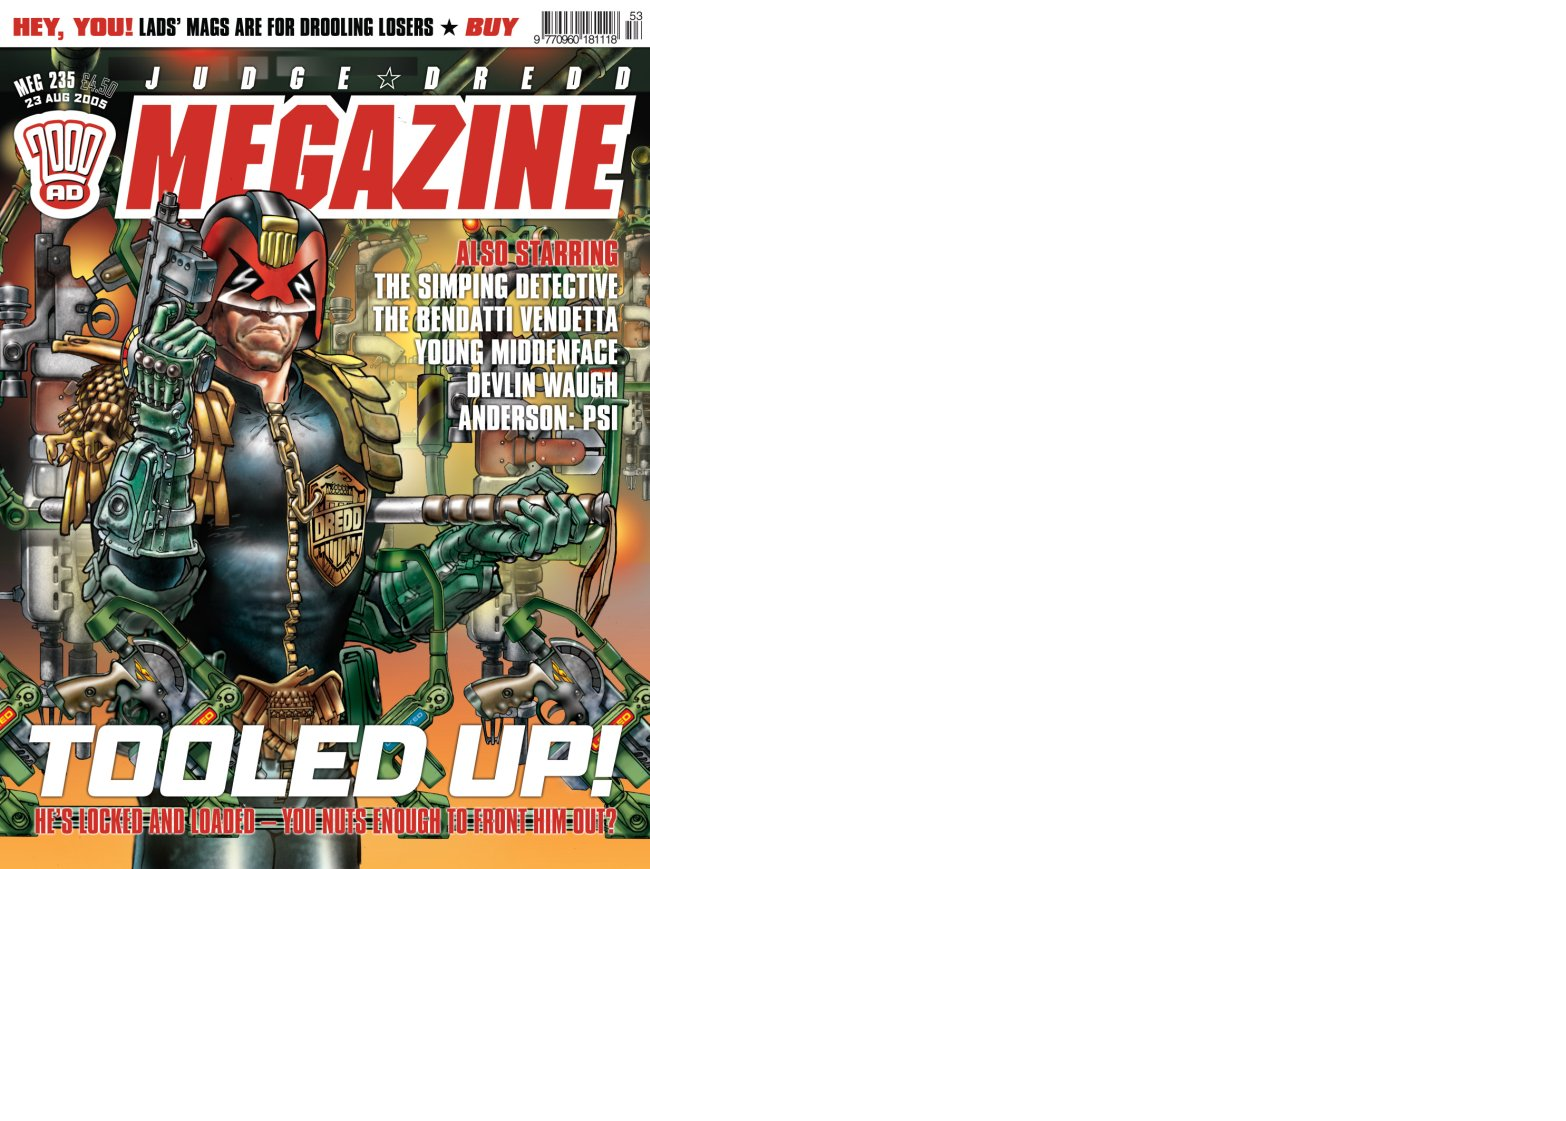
%!PS
<< /PageSize [1566 1121] >> setpagedevice
/rgb { 3 { 255 div 3 1 roll } repeat setrgbcolor } def
/picture { 5 dict begin { /h /w /y /x /name } { exch def } forall
  gsave x y translate w h scale
  w h 8 [w 0 0 h 0 0] name (r) file false 3 colorimage grestore end } def
0 1121 translate 1 -1 scale
4 setmiterlimit
255 255 255 rgb
0 0 1566 1121 rectfill
(img_01.rgb) 0 8 650 861 picture
showpage
